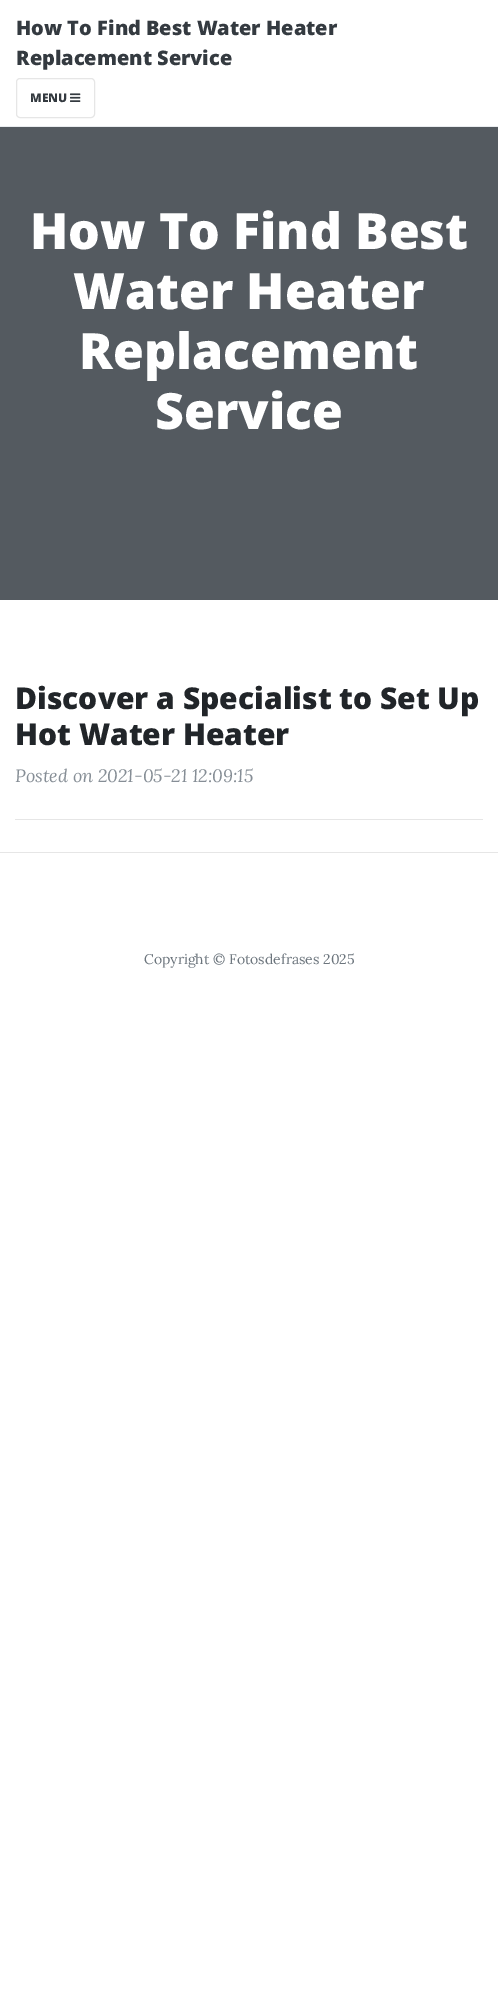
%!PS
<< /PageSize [498 1992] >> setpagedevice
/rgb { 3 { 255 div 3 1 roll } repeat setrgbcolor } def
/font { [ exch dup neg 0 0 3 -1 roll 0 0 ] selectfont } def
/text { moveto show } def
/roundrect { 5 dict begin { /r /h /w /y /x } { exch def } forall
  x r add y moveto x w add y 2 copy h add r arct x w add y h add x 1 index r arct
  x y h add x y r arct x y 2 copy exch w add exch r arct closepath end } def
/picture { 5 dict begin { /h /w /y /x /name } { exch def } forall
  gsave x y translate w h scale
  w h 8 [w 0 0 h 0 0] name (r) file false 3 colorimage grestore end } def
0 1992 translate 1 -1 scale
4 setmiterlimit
255 255 255 rgb
0 0 498 1992 rectfill
233 236 239 rgb
0 126 498 1 rectfill
230 230 230 rgb
16.5 78.5 78 39 3.5 roundrect stroke
(img_01.rgb) 70 93 11 9 picture
84 90 96 rgb
0 127 498 473 rectfill
230 230 230 rgb
15 819 468 1 rectfill
0 852 498 1 rectfill
/OpenSans-ExtraBold 20 font
52 58 64 rgb
(How To Find Best Water Heater) 16 35 text
(Replacement Service) 16 65 text
/OpenSans-ExtraBold 12 font
(MENU) 30 102 text
/OpenSans-ExtraBold 50 font
255 255 255 rgb
(How To Find Best) 30 249 text
(Water Heater) 73 309 text
(Replacement) 79 369 text
(Service) 155 429 text
/OpenSans-ExtraBold 30 font
33 37 41 rgb
(Discover a Specialist to Set Up) 15 709 text
(Hot Water Heater) 15 745 text
/Lora-Italic 18 font
134 142 150 rgb
(Posted on 2021-05-21 12:09:15) 15 782 text
/Lora-Regular 14 font
108 117 125 rgb
(Copyright © Fotosdefrases 2025) 144 964 text
showpage
